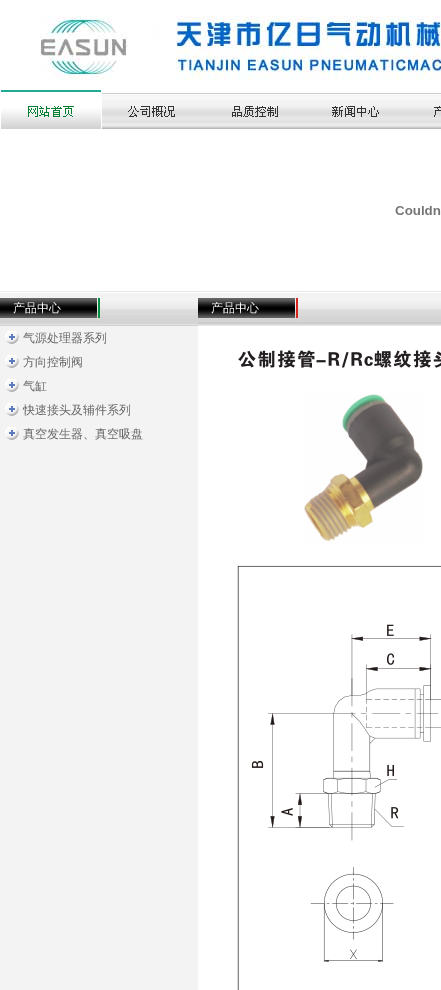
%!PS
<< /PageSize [441 990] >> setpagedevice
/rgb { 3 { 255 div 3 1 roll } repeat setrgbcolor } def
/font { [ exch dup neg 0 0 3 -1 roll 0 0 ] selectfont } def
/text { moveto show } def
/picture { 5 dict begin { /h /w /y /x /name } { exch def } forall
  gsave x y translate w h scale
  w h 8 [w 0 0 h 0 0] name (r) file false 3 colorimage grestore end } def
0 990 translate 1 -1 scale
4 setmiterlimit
255 255 255 rgb
0 0 441 990 rectfill
(img_01.rgb) 40 15 401 66 picture
(img_02.rgb) 102 93 339 36 picture
(img_03.rgb) 0 90 102 39 picture
(img_04.rgb) 128 106 47 11 picture
(img_05.rgb) 232 106 46 11 picture
(img_06.rgb) 332 106 47 11 picture
(img_07.rgb) 434 106 7 11 picture
(img_08.rgb) 395 206 46 9 picture
243 243 243 rgb
0 326 198 664 rectfill
(img_09.rgb) 0 291 198 35 picture
(img_10.rgb) 5 331 14 13 picture
(img_10.rgb) 5 355 14 13 picture
(img_10.rgb) 5 379 14 13 picture
(img_10.rgb) 5 403 14 13 picture
(img_10.rgb) 5 427 14 13 picture
(img_11.rgb) 198 291 243 35 picture
(img_12.rgb) 237 350 204 640 picture
/WenQuanYiZenHei-Medium 12 font
255 255 255 rgb
(产品中心) 13 312 text
102 102 102 rgb
(气源处理器系列) 23 342 text
(方向控制阀) 23 366 text
(气缸) 23 390 text
(快速接头及辅件系列) 23 414 text
(真空发生器、真空吸盘) 23 438 text
255 255 255 rgb
(产品中心) 211 312 text
showpage
